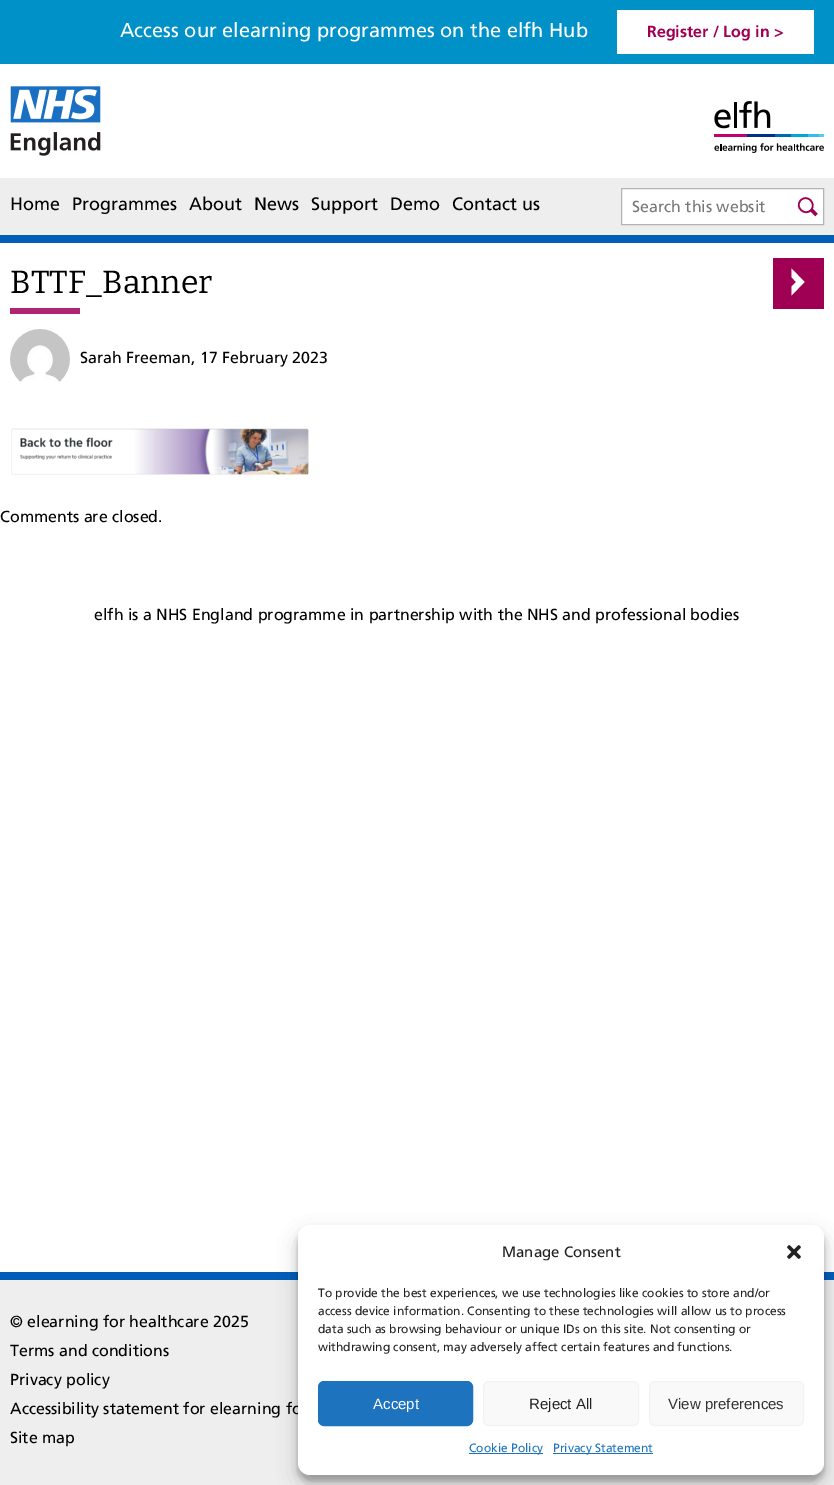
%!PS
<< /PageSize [834 1485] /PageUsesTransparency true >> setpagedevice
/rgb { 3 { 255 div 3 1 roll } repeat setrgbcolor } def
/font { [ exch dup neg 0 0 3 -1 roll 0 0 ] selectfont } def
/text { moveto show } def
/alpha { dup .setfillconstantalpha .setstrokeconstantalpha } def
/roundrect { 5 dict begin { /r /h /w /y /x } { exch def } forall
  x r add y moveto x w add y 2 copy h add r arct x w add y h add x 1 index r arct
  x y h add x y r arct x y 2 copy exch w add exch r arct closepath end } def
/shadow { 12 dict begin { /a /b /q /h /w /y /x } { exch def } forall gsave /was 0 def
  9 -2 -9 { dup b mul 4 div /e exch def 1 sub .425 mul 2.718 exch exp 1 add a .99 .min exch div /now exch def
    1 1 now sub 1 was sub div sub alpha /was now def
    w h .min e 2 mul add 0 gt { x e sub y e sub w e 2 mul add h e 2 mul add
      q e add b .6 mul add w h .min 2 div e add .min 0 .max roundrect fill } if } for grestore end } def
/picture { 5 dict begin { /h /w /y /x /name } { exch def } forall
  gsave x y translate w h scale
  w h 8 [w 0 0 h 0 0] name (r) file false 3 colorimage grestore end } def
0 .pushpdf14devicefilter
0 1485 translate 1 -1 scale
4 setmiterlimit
255 255 255 rgb
0 0 834 1485 rectfill
0 145 201 rgb
0 0 834 64 rectfill
255 255 255 rgb
617 10 197 44 rectfill
(img_01.rgb) 10 86 91 70 picture
(img_02.rgb) 714 101 110 52 picture
238 238 239 rgb
0 178 834 57 rectfill
0 94 184 rgb
0 235 834 8 rectfill
255 255 255 rgb
621.5 188.5 moveto 202 0 rlineto 0 36 rlineto -202 0 rlineto closepath gsave fill grestore
179 179 179 rgb
stroke
160 0 84 rgb
1.6 setlinewidth
800.5 200.5 moveto 6 -7 16.5 2.5 10.5 9.5 rcurveto -6 6.5 -16.5 -2.5 -10.5 -9.5 rcurveto closepath stroke
3.2 setlinewidth
811 209.5 moveto 5.5 5.5 rlineto stroke
174 37 115 rgb
10 308 70 6 rectfill
160 0 84 rgb
773 258 51 51 rectfill
255 255 255 rgb
796 282 moveto -4.5 -5 rlineto 0 -8.5 rlineto 13 13.5 rlineto -13 13.5 rlineto 0 -9 rlineto closepath fill
(img_03.rgb) 10 329 60 53 picture
(img_04.rgb) 11 428 298 47 picture
238 238 239 rgb
0 1280 834 205 rectfill
0 94 184 rgb
0 1272 834 8 rectfill
0 0 0 rgb
298 1231 526 250 12 3 0.23 shadow
298 1235 526 250 12 10 0.19 shadow
/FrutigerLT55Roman-Regular 20 font
255 255 255 rgb
(Access our elearning programmes on the elfh Hub) 120 37 text
/Frutiger-Bold 16 font
160 0 84 rgb
(Register / Log in >) 647 37 text
/FrutigerLT55Roman-Regular 18 font
0 0 0 rgb
(Home) 10 210 text
(Programmes) 72 210 text
(About) 189 210 text
(News) 254 210 text
(Support) 311 210 text
(Demo) 390 210 text
(Contact us) 452 210 text
/FrutigerLT55Roman-Regular 16 font
119 119 119 rgb
(Search this websit) 632 212 text
/Bitter-Regular 32 font
0 0 0 rgb
(BTTF_Banner) 10 293 text
/FrutigerLT55Roman-Regular 16 font
(Sarah Freeman, 17 February 2023) 80 363 text
(Comments are closed.) 0 522 text
(elfh is a NHS England programme in partnership with the NHS and professional bodies) 94 620 text
(© elearning for healthcare 2025) 10 1327 text
(Terms and conditions) 10 1356 text
(Privacy policy) 10 1385 text
(Accessibility statement for elearning fo) 10 1414 text
(Site map) 10 1443 text
255 255 255 rgb
298 1225 526 250 12 roundrect fill
/FrutigerLT55Roman-Regular 15 font
34 34 34 rgb
(Manage Consent) 502 1257 text
(img_05.rgb) 787 1245 14 14 picture
/FrutigerLT55Roman-Regular 12 font
(To provide the best experiences, we use technologies like cookies to store and/or) 318 1297 text
(access device information. Consenting to these technologies will allow us to process) 318 1315 text
(data such as browsing behaviour or unique IDs on this site. Not consenting or) 318 1333 text
(withdrawing consent, may adversely affect certain features and functions.) 318 1351 text
30 115 190 rgb
318.5 1381.5 154 44 5.5 roundrect gsave fill grestore
1 setlinewidth
stroke
/LiberationSans-Regular 15 font
255 255 255 rgb
(Accept) 373 1409 text
249 249 249 rgb
483.5 1381.5 155 44 5.5 roundrect gsave fill grestore
242 242 242 rgb
stroke
34 34 34 rgb
(Reject All) 529 1409 text
249 249 249 rgb
649.5 1381.5 154 44 5.5 roundrect gsave fill grestore
242 242 242 rgb
stroke
51 51 51 rgb
(View preferences) 668 1409 text
30 115 190 rgb
469 1453 74 1 rectfill
/FrutigerLT55Roman-Regular 12 font
(Cookie Policy) 469 1452 text
553 1453 100 1 rectfill
(Privacy Statement) 553 1452 text
.poppdf14devicefilter showpage
